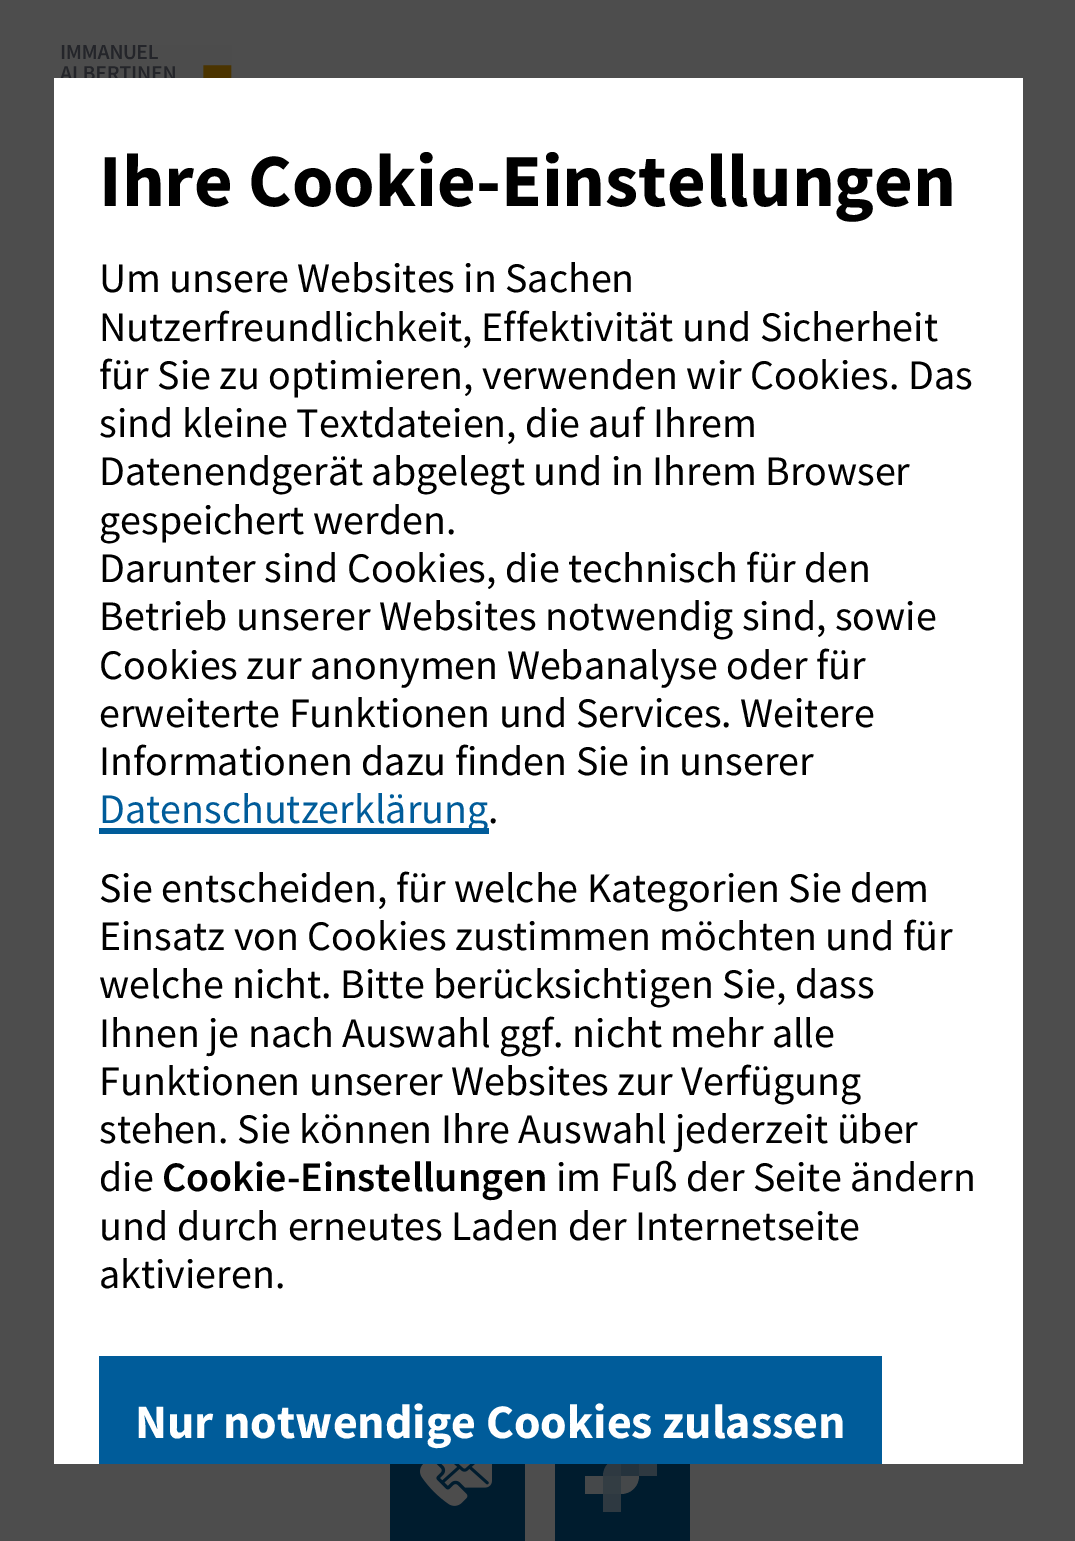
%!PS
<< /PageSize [1075 1541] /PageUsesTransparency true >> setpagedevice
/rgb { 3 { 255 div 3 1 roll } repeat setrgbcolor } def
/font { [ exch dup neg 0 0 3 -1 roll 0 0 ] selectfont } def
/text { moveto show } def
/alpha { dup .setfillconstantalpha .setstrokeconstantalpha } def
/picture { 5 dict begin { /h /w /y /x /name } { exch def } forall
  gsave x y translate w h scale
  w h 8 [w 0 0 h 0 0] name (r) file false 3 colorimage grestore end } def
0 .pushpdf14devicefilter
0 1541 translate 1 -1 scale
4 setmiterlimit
77 77 77 rgb
0 0 1075 1541 rectfill
(img_01.rgb) 60 45 172 33 picture
0 28 46 rgb
555 1464 135 77 rectfill
46 57 65 rgb
621 1458 moveto -10 0 -18 8 -18 18 rcurveto 0 36 rlineto 18 0 rlineto 0 -36 rlineto 36 0 rlineto 0 -18 rlineto closepath fill
0.9 alpha
77 77 77 rgb
621 1440 moveto 0 36 rlineto -36 0 rlineto 0 18 rlineto 36 0 rlineto 10 0 18 -8 18 -18 rcurveto 0 -36 rlineto closepath fill
1 alpha
255 255 255 rgb
54 78 969 1386 rectfill
0 92 154 rgb
99 828 390 6 rectfill
99 1356 783 108 rectfill
0 28 46 rgb
390 1464 135 77 rectfill
(img_02.rgb) 420 1464 72 42 picture
37 51 61 rgb
621 1464 18 12 rectfill
51 61 67 rgb
603 1476 18 18 rectfill
/SourceSansPro-Bold 75 font
0 0 0 rgb
(Ihre Cookie-Einstellungen) 99 206 text
/SourceSansPro-Regular 42 font
(Um unsere Websites in Sachen) 99 292 text
(Nutzerfreundlichkeit, Effektivität und Sicherheit) 99 341 text
(für Sie zu optimieren, verwenden wir Cookies. Das) 99 389 text
(sind kleine Textdateien, die auf Ihrem) 99 437 text
(Datenendgerät abgelegt und in Ihrem Browser) 99 485 text
(gespeichert werden.) 99 534 text
(Darunter sind Cookies, die technisch für den) 99 582 text
(Betrieb unserer Websites notwendig sind, sowie) 99 630 text
(Cookies zur anonymen Webanalyse oder für) 99 679 text
(erweiterte Funktionen und Services. Weitere) 99 727 text
(Informationen dazu finden Sie in unserer) 99 775 text
0 92 154 rgb
(Datenschutzerklärung) 99 823 text
0 0 0 rgb
(.) 488 823 text
(Sie entscheiden, für welche Kategorien Sie dem) 99 902 text
(Einsatz von Cookies zustimmen möchten und für) 99 950 text
(welche nicht. Bitte berücksichtigen Sie, dass) 99 998 text
(Ihnen je nach Auswahl ggf. nicht mehr alle) 99 1047 text
(Funktionen unserer Websites zur Verfügung) 99 1095 text
(stehen. Sie können Ihre Auswahl jederzeit über) 99 1143 text
(die) 99 1191 text
/SourceSansPro-SemiBold 42 font
(Cookie-Einstellungen) 162 1191 text
/SourceSansPro-Regular 42 font
(im Fuß der Seite ändern) 556 1191 text
(und durch erneutes Laden der Internetseite) 99 1240 text
(aktivieren.) 99 1288 text
/SourceSansPro-Bold 48 font
255 255 255 rgb
(Nur notwendige Cookies zulassen) 135 1438 text
.poppdf14devicefilter showpage
